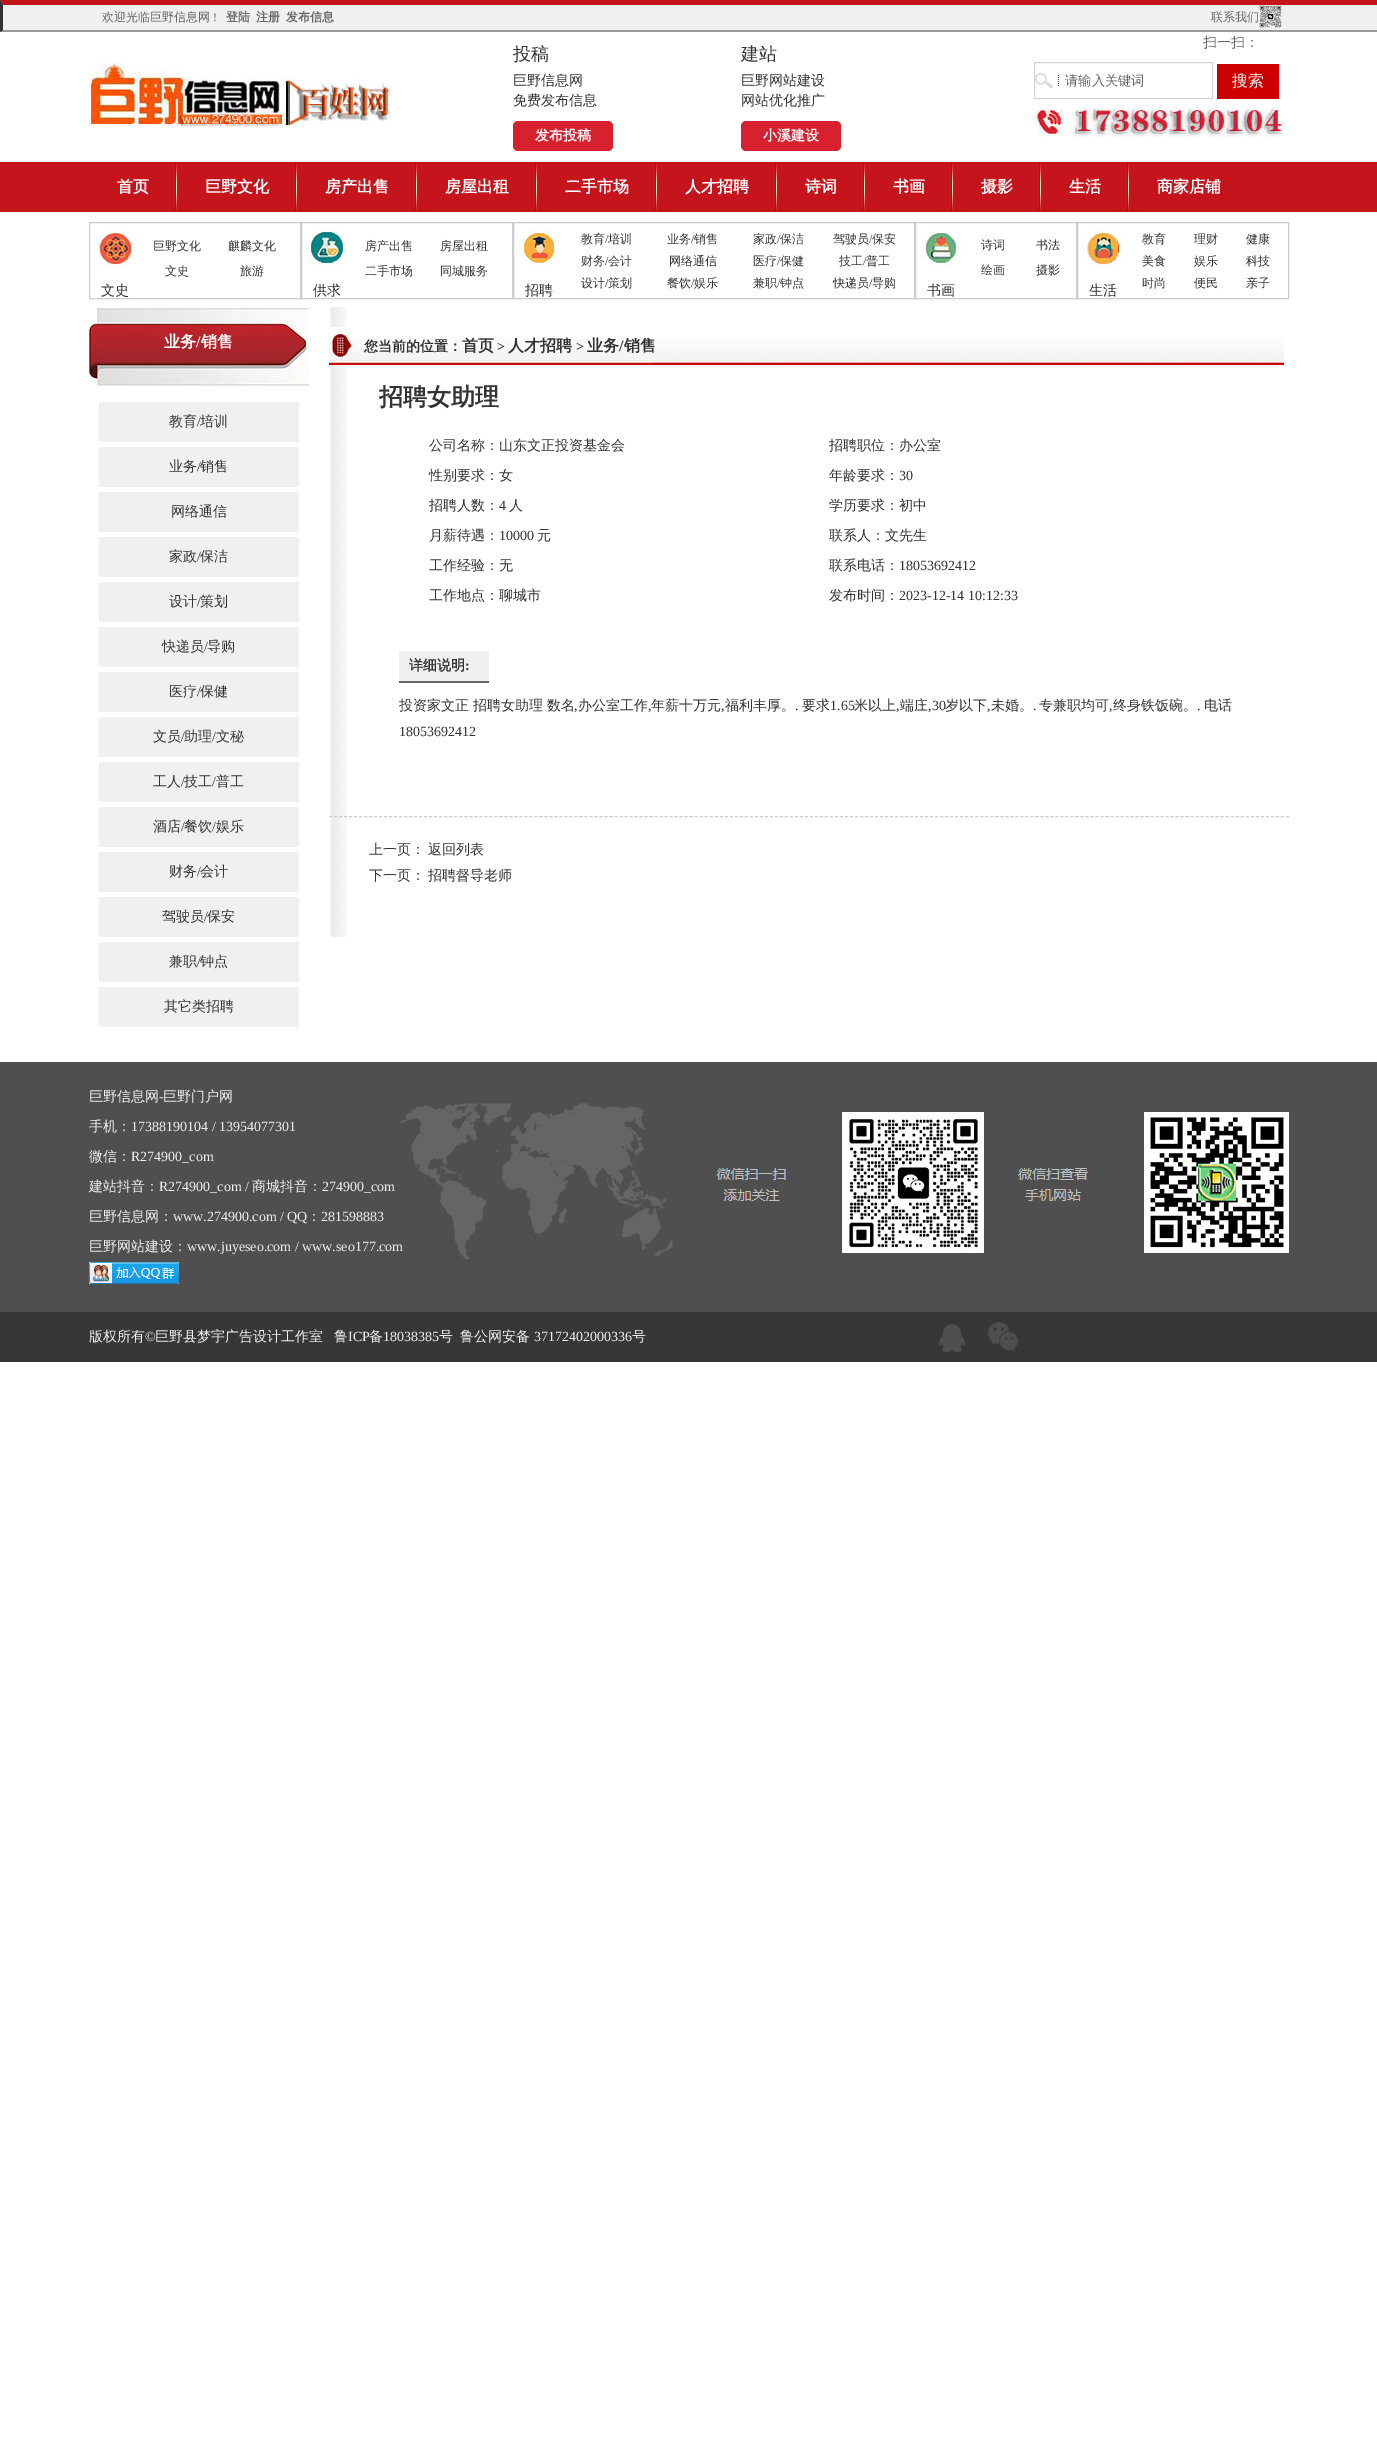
%!PS
<< /PageSize [1377 2455] >> setpagedevice
/rgb { 3 { 255 div 3 1 roll } repeat setrgbcolor } def
/font { [ exch dup neg 0 0 3 -1 roll 0 0 ] selectfont } def
/text { moveto show } def
/roundrect { 5 dict begin { /r /h /w /y /x } { exch def } forall
  x r add y moveto x w add y 2 copy h add r arct x w add y h add x 1 index r arct
  x y h add x y r arct x y 2 copy exch w add exch r arct closepath end } def
/picture { 5 dict begin { /h /w /y /x /name } { exch def } forall
  gsave x y translate w h scale
  w h 8 [w 0 0 h 0 0] name (r) file false 3 colorimage grestore end } def
0 2455 translate 1 -1 scale
4 setmiterlimit
255 255 255 rgb
0 0 1377 2455 rectfill
240 240 240 rgb
3 5 1374 25 rectfill
197 20 28 rgb
0 0 moveto 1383 0 rlineto -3 5 rlineto -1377 0 rlineto closepath fill
153 153 153 rgb
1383 32 moveto -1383 0 rlineto 3 -2 rlineto 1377 0 rlineto closepath fill
51 51 51 rgb
0 32 moveto 0 -32 rlineto 3 5 rlineto 0 25 rlineto closepath fill
(img_01.rgb) 1259 5 23 23 picture
(img_02.rgb) 89 62 304 65 picture
215 33 47 rgb
513 121 100 30 5 roundrect fill
741 121 100 30 5 roundrect fill
(img_03.rgb) 1035 73 24 15 picture
214 214 214 rgb
1034.5 62.5 178 36 rectstroke
204 0 0 rgb
1217 64 62 35 rectfill
(img_04.rgb) 1031 107 256 32 picture
197 20 28 rgb
0 162 1377 50 rectfill
(img_05.rgb) 175 162 2 50 picture
(img_05.rgb) 295 162 2 50 picture
(img_05.rgb) 415 162 2 50 picture
(img_05.rgb) 535 162 2 50 picture
(img_05.rgb) 655 162 2 50 picture
(img_05.rgb) 775 162 2 50 picture
(img_05.rgb) 863 162 2 50 picture
(img_05.rgb) 951 162 2 50 picture
(img_05.rgb) 1039 162 2 50 picture
(img_05.rgb) 1127 162 2 50 picture
204 204 204 rgb
89.5 222.5 211 76 rectstroke
(img_06.rgb) 95 228 40 40 picture
301.5 222.5 211 76 rectstroke
(img_07.rgb) 307 228 40 40 picture
513.5 222.5 401 76 rectstroke
(img_08.rgb) 519 228 40 40 picture
915.5 222.5 161 76 rectstroke
(img_09.rgb) 921 228 40 40 picture
1077.5 222.5 211 76 rectstroke
(img_10.rgb) 1083 228 40 40 picture
(img_11.rgb) 89 307 220 80 picture
240 240 240 rgb
99 402 200 40 rectfill
99 447 200 40 rectfill
99 492 200 40 rectfill
99 537 200 40 rectfill
99 582 200 40 rectfill
99 627 200 40 rectfill
99 672 200 40 rectfill
99 717 200 40 rectfill
99 762 200 40 rectfill
99 807 200 40 rectfill
99 852 200 40 rectfill
99 897 200 40 rectfill
99 942 200 40 rectfill
99 987 200 40 rectfill
(img_12.rgb) 330 307 17 630 picture
(img_13.rgb) 329 327 955 38 picture
399 651 90 30 rectfill
102 102 102 rgb
399 681 90 2 rectfill
204 204 204 rgb
[3 2.01] 0 setdash
329 816.5 moveto 960 0 rlineto stroke
79 79 79 rgb
0 1062 1377 250 rectfill
(img_14.rgb) 399 1103 274 157 picture
(img_15.rgb) 89 1262 90 22 picture
(img_16.rgb) 716 1112 268 141 picture
(img_17.rgb) 1018 1112 271 141 picture
55 55 55 rgb
0 1312 1377 50 rectfill
(img_18.rgb) 939 1324 26 28 picture
(img_19.rgb) 988 1322 30 30 picture
/WenQuanYiZenHei-Medium 12 font
102 102 102 rgb
(欢迎光临巨野信息网) 102 21 text
/LiberationSerif-Regular 12 font
(!) 213 21 text
/WenQuanYiZenHei-Bold 12 font
(登陆) 226 21 text
(注册) 256 21 text
(发布信息) 286 21 text
/WenQuanYiZenHei-Medium 12 font
(联系我们) 1211 21 text
/WenQuanYiZenHei-Medium 14 font
(扫一扫：) 1203 47 text
/WenQuanYiZenHei-Medium 18 font
51 51 51 rgb
(投稿) 513 60 text
/WenQuanYiZenHei-Medium 14 font
(巨野信息网) 513 85 text
(免费发布信息) 513 105 text
/WenQuanYiZenHei-Bold 14 font
255 255 255 rgb
(发布投稿) 535 140 text
/WenQuanYiZenHei-Medium 18 font
51 51 51 rgb
(建站) 741 60 text
/WenQuanYiZenHei-Medium 14 font
(巨野网站建设) 741 85 text
(网站优化推广) 741 105 text
/WenQuanYiZenHei-Bold 14 font
255 255 255 rgb
(小溪建设) 763 140 text
/WenQuanYiZenHei-Medium 13.25 font
102 102 102 rgb
(请输入关键词) 1065 85 text
/WenQuanYiZenHei-Medium 16 font
255 255 255 rgb
(搜索) 1232 86 text
/WenQuanYiZenHei-Bold 16 font
(首页) 117 192 text
(巨野文化) 205 192 text
(房产出售) 325 192 text
(房屋出租) 445 192 text
(二手市场) 565 192 text
(人才招聘) 685 192 text
(诗词) 805 192 text
(书画) 893 192 text
(摄影) 981 192 text
(生活) 1069 192 text
(商家店铺) 1157 192 text
/WenQuanYiZenHei-Medium 12 font
51 51 51 rgb
(巨野文化) 153 250 text
(麒麟文化) 228 250 text
(文史) 165 275 text
(旅游) 240 275 text
/WenQuanYiZenHei-Medium 14 font
(文史) 101 295 text
/WenQuanYiZenHei-Medium 12 font
(房产出售) 365 250 text
(房屋出租) 440 250 text
(二手市场) 365 275 text
(同城服务) 440 275 text
/WenQuanYiZenHei-Medium 14 font
(供求) 313 295 text
(招聘) 525 295 text
/WenQuanYiZenHei-Medium 12 font
(教育) 581 243 text
/LiberationSerif-Regular 12 font
(/) 605 243 text
/WenQuanYiZenHei-Medium 12 font
(培训) 608 243 text
(业务) 667 243 text
/LiberationSerif-Regular 12 font
(/) 691 243 text
/WenQuanYiZenHei-Medium 12 font
(销售) 694 243 text
(家政) 753 243 text
/LiberationSerif-Regular 12 font
(/) 777 243 text
/WenQuanYiZenHei-Medium 12 font
(保洁) 780 243 text
(驾驶员) 833 243 text
/LiberationSerif-Regular 12 font
(/) 869 243 text
/WenQuanYiZenHei-Medium 12 font
(保安) 872 243 text
(财务) 581 265 text
/LiberationSerif-Regular 12 font
(/) 605 265 text
/WenQuanYiZenHei-Medium 12 font
(会计) 608 265 text
(网络通信) 669 265 text
(医疗) 753 265 text
/LiberationSerif-Regular 12 font
(/) 777 265 text
/WenQuanYiZenHei-Medium 12 font
(保健) 780 265 text
(技工) 839 265 text
/LiberationSerif-Regular 12 font
(/) 863 265 text
/WenQuanYiZenHei-Medium 12 font
(普工) 866 265 text
(设计) 581 287 text
/LiberationSerif-Regular 12 font
(/) 605 287 text
/WenQuanYiZenHei-Medium 12 font
(策划) 608 287 text
(餐饮) 667 287 text
/LiberationSerif-Regular 12 font
(/) 691 287 text
/WenQuanYiZenHei-Medium 12 font
(娱乐) 694 287 text
(兼职) 753 287 text
/LiberationSerif-Regular 12 font
(/) 777 287 text
/WenQuanYiZenHei-Medium 12 font
(钟点) 780 287 text
(快递员) 833 287 text
/LiberationSerif-Regular 12 font
(/) 869 287 text
/WenQuanYiZenHei-Medium 12 font
(导购) 872 287 text
(诗词) 981 249 text
(书法) 1036 249 text
(绘画) 981 274 text
(摄影) 1036 274 text
/WenQuanYiZenHei-Medium 14 font
(书画) 927 295 text
(生活) 1089 295 text
/WenQuanYiZenHei-Medium 12 font
(教育) 1142 243 text
(理财) 1194 243 text
(健康) 1246 243 text
(美食) 1142 265 text
(娱乐) 1194 265 text
(科技) 1246 265 text
(时尚) 1142 287 text
(便民) 1194 287 text
(亲子) 1246 287 text
/WenQuanYiZenHei-Bold 16 font
255 255 255 rgb
(业务) 164 347 text
/LiberationSerif-Bold 16 font
(/) 196 347 text
/WenQuanYiZenHei-Bold 16 font
(销售) 201 347 text
/WenQuanYiZenHei-Medium 14 font
51 51 51 rgb
(教育) 169 426 text
/LiberationSerif-Regular 14 font
(/) 197 426 text
/WenQuanYiZenHei-Medium 14 font
(培训) 200 426 text
(业务) 169 471 text
/LiberationSerif-Regular 14 font
(/) 197 471 text
/WenQuanYiZenHei-Medium 14 font
(销售) 200 471 text
(网络通信) 171 516 text
(家政) 169 561 text
/LiberationSerif-Regular 14 font
(/) 197 561 text
/WenQuanYiZenHei-Medium 14 font
(保洁) 200 561 text
(设计) 169 606 text
/LiberationSerif-Regular 14 font
(/) 197 606 text
/WenQuanYiZenHei-Medium 14 font
(策划) 200 606 text
(快递员) 162 651 text
/LiberationSerif-Regular 14 font
(/) 204 651 text
/WenQuanYiZenHei-Medium 14 font
(导购) 207 651 text
(医疗) 169 696 text
/LiberationSerif-Regular 14 font
(/) 197 696 text
/WenQuanYiZenHei-Medium 14 font
(保健) 200 696 text
(文员) 153 741 text
/LiberationSerif-Regular 14 font
(/) 181 741 text
/WenQuanYiZenHei-Medium 14 font
(助理) 184 741 text
/LiberationSerif-Regular 14 font
(/) 212 741 text
/WenQuanYiZenHei-Medium 14 font
(文秘) 216 741 text
(工人) 153 786 text
/LiberationSerif-Regular 14 font
(/) 181 786 text
/WenQuanYiZenHei-Medium 14 font
(技工) 184 786 text
/LiberationSerif-Regular 14 font
(/) 212 786 text
/WenQuanYiZenHei-Medium 14 font
(普工) 216 786 text
(酒店) 153 831 text
/LiberationSerif-Regular 14 font
(/) 181 831 text
/WenQuanYiZenHei-Medium 14 font
(餐饮) 184 831 text
/LiberationSerif-Regular 14 font
(/) 212 831 text
/WenQuanYiZenHei-Medium 14 font
(娱乐) 216 831 text
(财务) 169 876 text
/LiberationSerif-Regular 14 font
(/) 197 876 text
/WenQuanYiZenHei-Medium 14 font
(会计) 200 876 text
(驾驶员) 162 921 text
/LiberationSerif-Regular 14 font
(/) 204 921 text
/WenQuanYiZenHei-Medium 14 font
(保安) 207 921 text
(兼职) 169 966 text
/LiberationSerif-Regular 14 font
(/) 197 966 text
/WenQuanYiZenHei-Medium 14 font
(钟点) 200 966 text
(其它类招聘) 164 1011 text
/WenQuanYiZenHei-Bold 14 font
(您当前的位置：) 364 351 text
/WenQuanYiZenHei-Bold 16 font
(首页) 462 351 text
/LiberationSerif-Bold 14 font
(>) 497 351 text
/WenQuanYiZenHei-Bold 16 font
(人才招聘) 508 351 text
/LiberationSerif-Bold 14 font
(>) 576 351 text
/WenQuanYiZenHei-Bold 16 font
(业务) 587 351 text
/LiberationSerif-Bold 16 font
(/) 619 351 text
/WenQuanYiZenHei-Bold 16 font
(销售) 624 351 text
/WenQuanYiZenHei-Bold 24 font
(招聘女助理) 379 405 text
/WenQuanYiZenHei-Medium 14 font
(公司名称：山东文正投资基金会) 429 450 text
(招聘职位：办公室) 829 450 text
(性别要求：女) 429 480 text
(年龄要求：) 829 480 text
/LiberationSerif-Regular 14 font
(30) 899 480 text
/WenQuanYiZenHei-Medium 14 font
(招聘人数：) 429 510 text
/LiberationSerif-Regular 14 font
(4) 499 510 text
/WenQuanYiZenHei-Medium 14 font
(人) 509 510 text
(学历要求：初中) 829 510 text
(月薪待遇：) 429 540 text
/LiberationSerif-Regular 14 font
(10000) 499 540 text
/WenQuanYiZenHei-Medium 14 font
(元) 537 540 text
(联系人：文先生) 829 540 text
(工作经验：无) 429 570 text
(联系电话：) 829 570 text
/LiberationSerif-Regular 14 font
(18053692412) 899 570 text
/WenQuanYiZenHei-Medium 14 font
(工作地点：聊城市) 429 600 text
(发布时间：) 829 600 text
/LiberationSerif-Regular 14 font
(2023-12-14 10:12:33) 899 600 text
/WenQuanYiZenHei-Bold 14 font
(详细说明) 409 670 text
/LiberationSerif-Bold 14 font
(:) 465 670 text
/WenQuanYiZenHei-Medium 14 font
(投资家文正 招聘女助理 数名) 399 710 text
/LiberationSerif-Regular 14 font
(,) 574 710 text
/WenQuanYiZenHei-Medium 14 font
(办公室工作) 578 710 text
/LiberationSerif-Regular 14 font
(,) 648 710 text
/WenQuanYiZenHei-Medium 14 font
(年薪十万元) 651 710 text
/LiberationSerif-Regular 14 font
(,) 721 710 text
/WenQuanYiZenHei-Medium 14 font
(福利丰厚。) 725 710 text
/LiberationSerif-Regular 14 font
(.) 795 710 text
/WenQuanYiZenHei-Medium 14 font
(要求) 802 710 text
/LiberationSerif-Regular 14 font
(1.65) 830 710 text
/WenQuanYiZenHei-Medium 14 font
(米以上) 854 710 text
/LiberationSerif-Regular 14 font
(,) 896 710 text
/WenQuanYiZenHei-Medium 14 font
(端庄) 900 710 text
/LiberationSerif-Regular 14 font
(,30) 928 710 text
/WenQuanYiZenHei-Medium 14 font
(岁以下) 945 710 text
/LiberationSerif-Regular 14 font
(,) 987 710 text
/WenQuanYiZenHei-Medium 14 font
(未婚。) 991 710 text
/LiberationSerif-Regular 14 font
(.) 1033 710 text
/WenQuanYiZenHei-Medium 14 font
(专兼职均可) 1039 710 text
/LiberationSerif-Regular 14 font
(,) 1109 710 text
/WenQuanYiZenHei-Medium 14 font
(终身铁饭碗。) 1113 710 text
/LiberationSerif-Regular 14 font
(.) 1197 710 text
/WenQuanYiZenHei-Medium 14 font
(电话) 1204 710 text
/LiberationSerif-Regular 14 font
(18053692412) 399 736 text
/WenQuanYiZenHei-Medium 14 font
(上一页：) 369 854 text
(返回列表) 428 854 text
(下一页：) 369 880 text
(招聘督导老师) 428 880 text
240 240 240 rgb
(巨野信息网) 89 1101 text
/LiberationSerif-Regular 14 font
(-) 159 1101 text
/WenQuanYiZenHei-Medium 14 font
(巨野门户网) 163 1101 text
(手机：) 89 1131 text
/LiberationSerif-Regular 14 font
(17388190104 / 13954077301) 131 1131 text
/WenQuanYiZenHei-Medium 14 font
(微信：) 89 1161 text
/LiberationSerif-Regular 14 font
(R274900_com) 131 1161 text
/WenQuanYiZenHei-Medium 14 font
(建站抖音：) 89 1191 text
/LiberationSerif-Regular 14 font
(R274900_com /) 159 1191 text
/WenQuanYiZenHei-Medium 14 font
(商城抖音：) 252 1191 text
/LiberationSerif-Regular 14 font
(274900_com) 322 1191 text
/WenQuanYiZenHei-Medium 14 font
(巨野信息网：) 89 1221 text
/LiberationSerif-Regular 14 font
(www.274900.com / QQ) 173 1221 text
/WenQuanYiZenHei-Medium 14 font
(：) 307 1221 text
/LiberationSerif-Regular 14 font
(281598883) 321 1221 text
/WenQuanYiZenHei-Medium 14 font
(巨野网站建设：) 89 1251 text
/LiberationSerif-Regular 14 font
(www.juyeseo.com / www.seo177.com) 187 1251 text
/WenQuanYiZenHei-Medium 14 font
(版权所有) 89 1341 text
/LiberationSerif-Regular 14 font
(©) 145 1341 text
/WenQuanYiZenHei-Medium 14 font
(巨野县梦宇广告设计工作室) 155 1341 text
(鲁) 334 1341 text
/LiberationSerif-Regular 14 font
(ICP) 348 1341 text
/WenQuanYiZenHei-Medium 14 font
(备) 369 1341 text
/LiberationSerif-Regular 14 font
(18038385) 383 1341 text
/WenQuanYiZenHei-Medium 14 font
(号) 439 1341 text
(鲁公网安备) 460 1341 text
/LiberationSerif-Regular 14 font
(37172402000336) 534 1341 text
/WenQuanYiZenHei-Medium 14 font
(号) 632 1341 text
showpage
